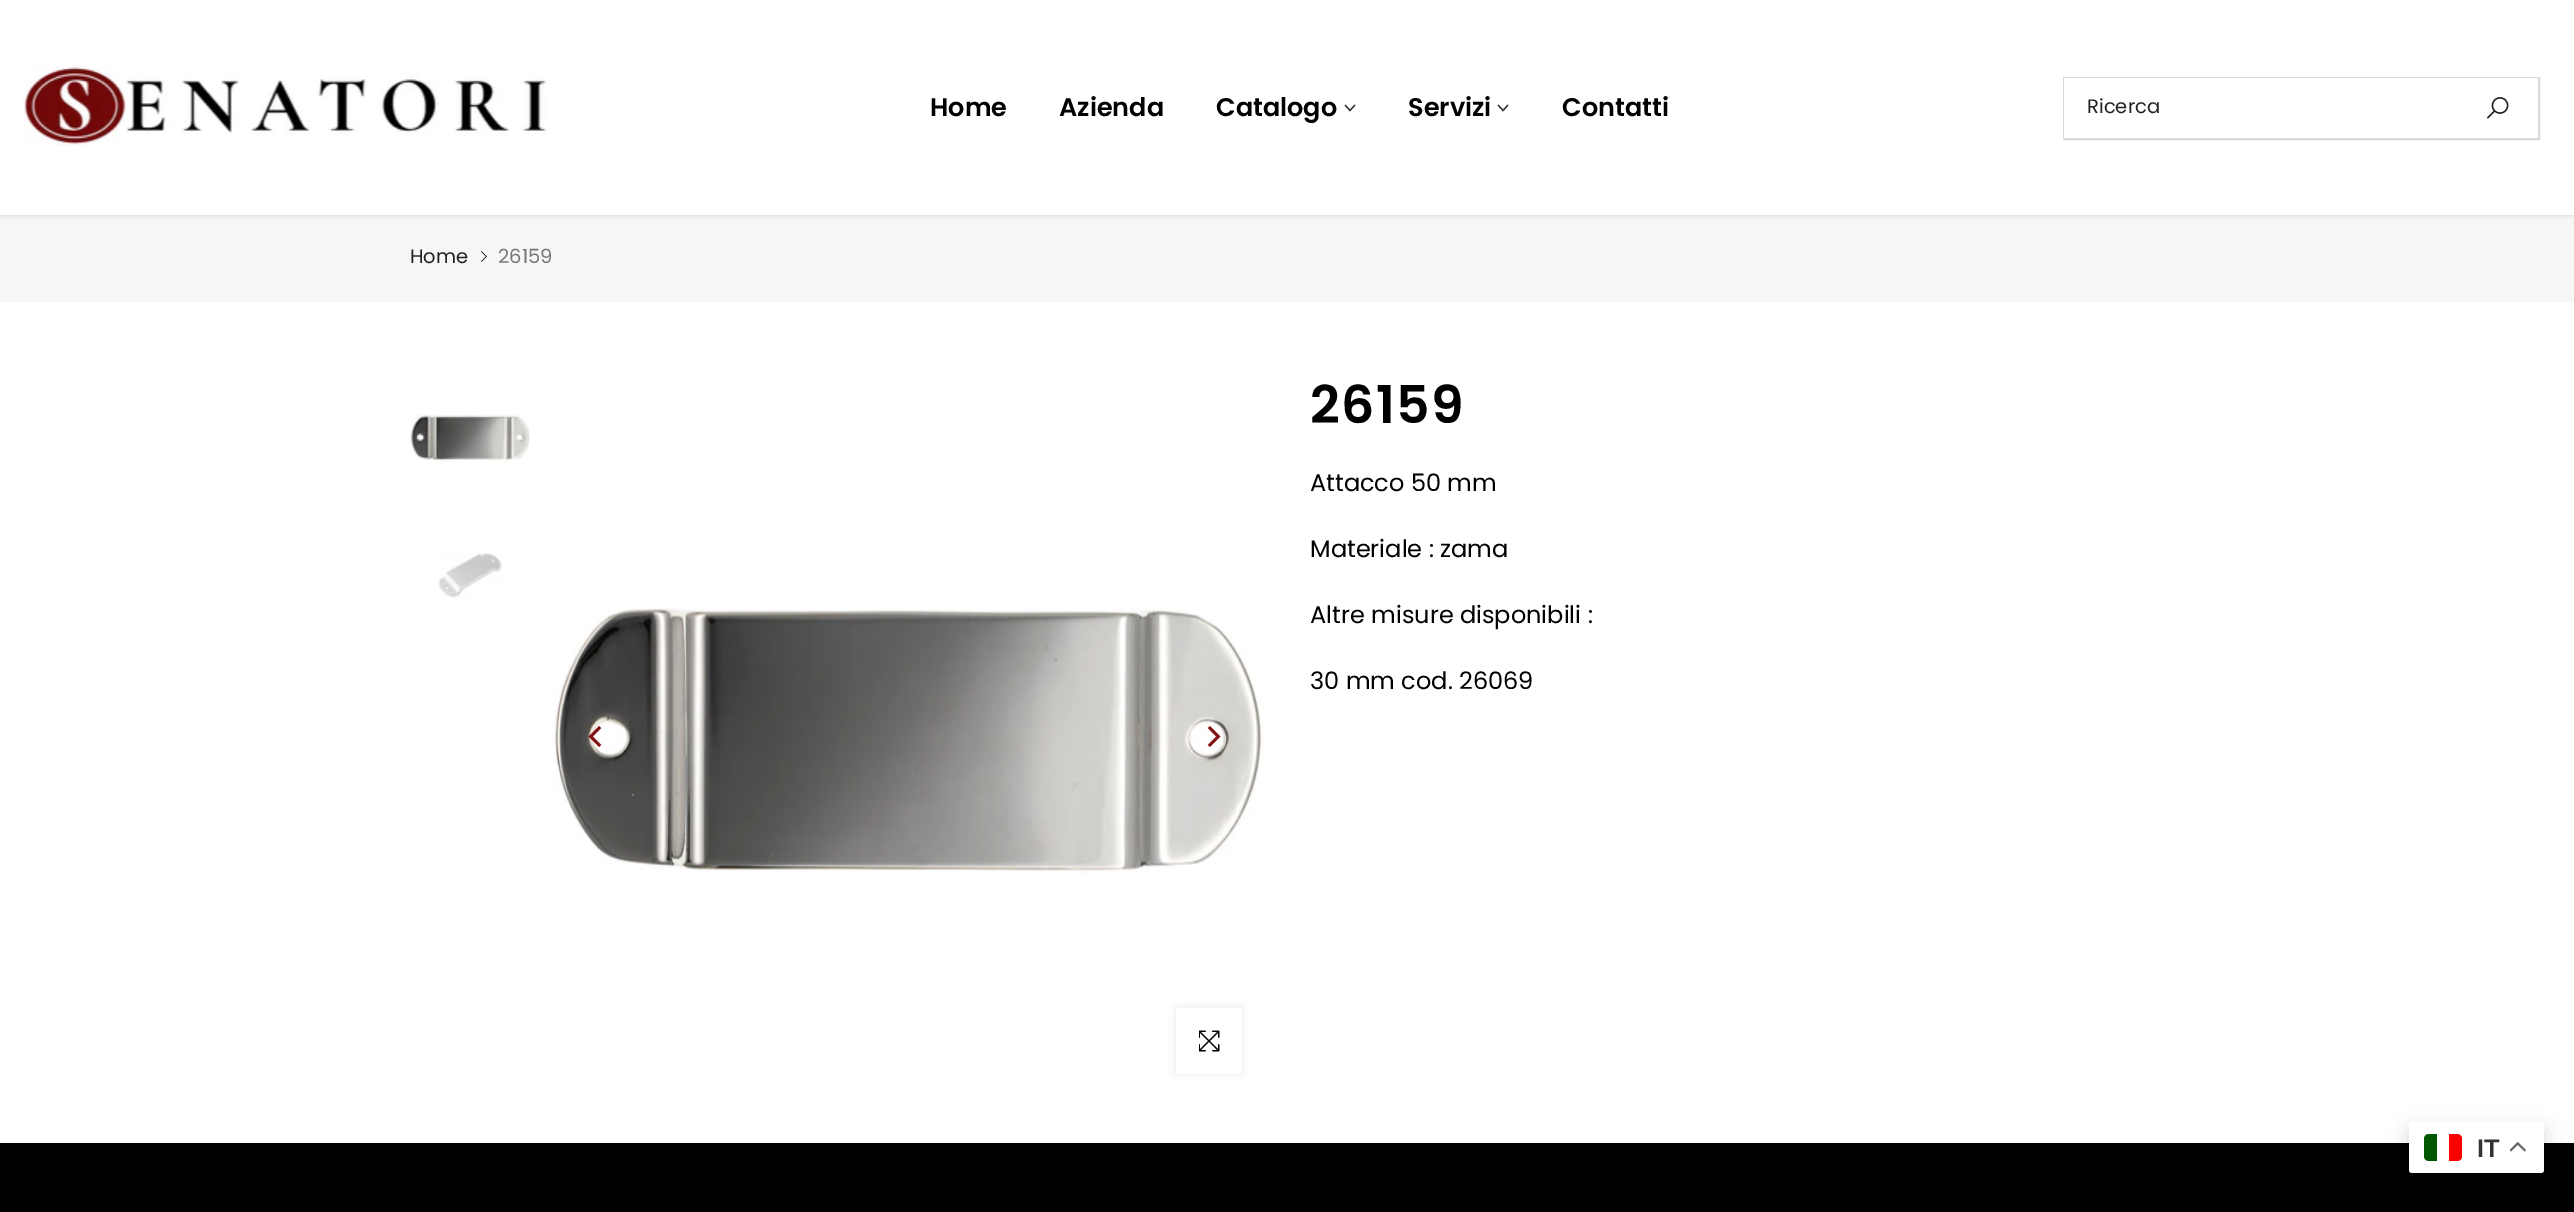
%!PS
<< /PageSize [2574 1212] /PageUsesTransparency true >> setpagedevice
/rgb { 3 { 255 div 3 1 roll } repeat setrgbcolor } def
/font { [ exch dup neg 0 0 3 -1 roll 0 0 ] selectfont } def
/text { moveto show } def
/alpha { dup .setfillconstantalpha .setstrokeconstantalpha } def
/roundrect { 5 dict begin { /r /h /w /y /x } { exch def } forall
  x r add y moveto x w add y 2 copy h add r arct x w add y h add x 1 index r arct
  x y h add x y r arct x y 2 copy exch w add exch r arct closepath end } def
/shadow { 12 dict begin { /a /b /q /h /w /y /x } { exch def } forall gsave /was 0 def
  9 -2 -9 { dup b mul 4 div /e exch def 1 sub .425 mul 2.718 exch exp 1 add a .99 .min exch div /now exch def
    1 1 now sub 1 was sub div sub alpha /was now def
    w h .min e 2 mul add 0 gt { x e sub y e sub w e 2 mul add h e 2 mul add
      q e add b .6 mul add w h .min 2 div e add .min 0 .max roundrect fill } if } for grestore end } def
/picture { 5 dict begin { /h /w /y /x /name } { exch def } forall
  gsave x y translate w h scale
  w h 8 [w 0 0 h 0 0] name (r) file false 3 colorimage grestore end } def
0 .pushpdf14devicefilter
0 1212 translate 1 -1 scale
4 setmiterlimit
255 255 255 rgb
0 0 2574 1212 rectfill
246 246 246 rgb
0 215 2574 87 rectfill
0 0 0 rgb
0 2 2574 214 0 2 0.1 shadow
255 255 255 rgb
0 0 2574 215 rectfill
(img_01.rgb) 23 67 525 79 picture
51 51 51 rgb
1.3 setlinewidth
2 setlinecap
1354.5 105.5 moveto -4.5 5 rlineto -4.5 -5 rlineto stroke
1507.5 105.5 moveto -4.5 5 rlineto -4.5 -5 rlineto stroke
217 217 217 rgb
2 setlinewidth
0 setlinecap
2064 78 475 61 rectstroke
255 255 255 rgb
2064 78 474 60 rectfill
(img_02.rgb) 2486 97 23 22 picture
(img_03.rgb) 481 251 6 11 picture
(img_04.rgb) 410 414 120 47 picture
(img_05.rgb) 438 553 64 48 picture
(img_06.rgb) 554 608 711 266 picture
(img_07.rgb) 588 726 14 21 picture
(img_08.rgb) 1207 726 14 21 picture
gsave
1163 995 moveto 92 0 rlineto 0 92 rlineto -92 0 rlineto closepath 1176 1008 moveto 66 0 rlineto 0 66 rlineto -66 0 rlineto closepath eoclip newpath
0 0 0 rgb
1176 1008 66 66 0 4 0.09 shadow
grestore
(img_09.rgb) 1199 1030 21 22 picture
0 0 0 rgb
0 1143 2574 69 rectfill
2409 1130 135 51 3 11 0.15 shadow
255 255 255 rgb
2409 1122 135 51 3 roundrect fill
0 87 0 rgb
2429 1134 moveto 8 0 rlineto 0 27 rlineto -8 0 rlineto -3 0 -5 -2 -5 -5 rcurveto 0 -17 rlineto 0 -3 2 -5 5 -5 rcurveto closepath fill
252 0 0 rgb
2449 1134 moveto 8 0 rlineto 3 0 5 2 5 5 rcurveto 0 17 rlineto 0 3 -2 5 -5 5 rcurveto -8 0 rlineto closepath fill
(img_10.rgb) 2510 1142 16 10 picture
/Poppins-SemiBold 25.5 font
0 0 0 rgb
(Home) 930 116 text
(Azienda) 1059 116 text
(Catalogo) 1216 116 text
(Servizi) 1408 116 text
(Contatti) 1562 116 text
/Poppins-Regular 19.5 font
34 34 34 rgb
(Ricerca) 2087 113 text
(Home) 410 263 text
119 119 119 rgb
(26159) 498 263 text
/Poppins-SemiBold 52 font
0 0 0 rgb
1310 423 moveto 1.5 0 (26159) ashow
/Poppins-Regular 24 font
(Attacco 50 mm) 1310 491 text
(Materiale : zama) 1310 557 text
(Altre misure disponibili :) 1310 623 text
(30 mm cod. 26069) 1310 689 text
/LiberationSans-Bold 25.5 font
51 51 51 rgb
(IT) 2477 1157 text
.poppdf14devicefilter showpage
